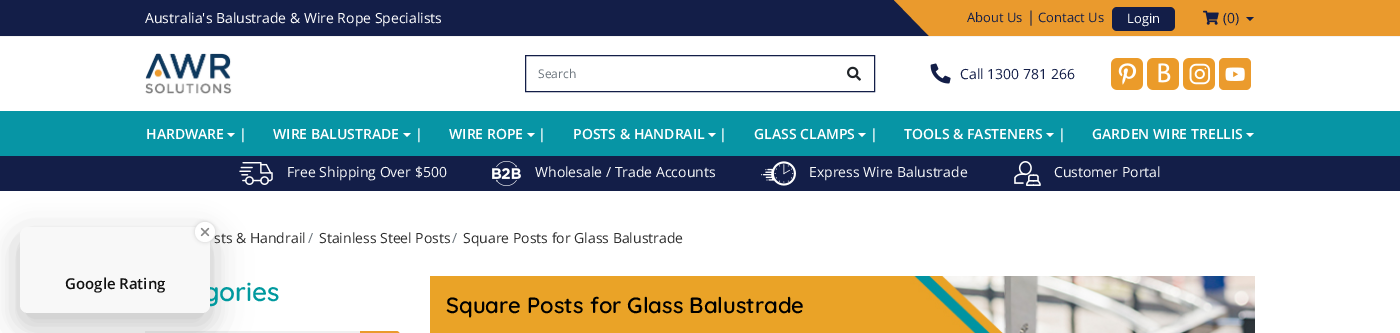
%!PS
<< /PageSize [1400 333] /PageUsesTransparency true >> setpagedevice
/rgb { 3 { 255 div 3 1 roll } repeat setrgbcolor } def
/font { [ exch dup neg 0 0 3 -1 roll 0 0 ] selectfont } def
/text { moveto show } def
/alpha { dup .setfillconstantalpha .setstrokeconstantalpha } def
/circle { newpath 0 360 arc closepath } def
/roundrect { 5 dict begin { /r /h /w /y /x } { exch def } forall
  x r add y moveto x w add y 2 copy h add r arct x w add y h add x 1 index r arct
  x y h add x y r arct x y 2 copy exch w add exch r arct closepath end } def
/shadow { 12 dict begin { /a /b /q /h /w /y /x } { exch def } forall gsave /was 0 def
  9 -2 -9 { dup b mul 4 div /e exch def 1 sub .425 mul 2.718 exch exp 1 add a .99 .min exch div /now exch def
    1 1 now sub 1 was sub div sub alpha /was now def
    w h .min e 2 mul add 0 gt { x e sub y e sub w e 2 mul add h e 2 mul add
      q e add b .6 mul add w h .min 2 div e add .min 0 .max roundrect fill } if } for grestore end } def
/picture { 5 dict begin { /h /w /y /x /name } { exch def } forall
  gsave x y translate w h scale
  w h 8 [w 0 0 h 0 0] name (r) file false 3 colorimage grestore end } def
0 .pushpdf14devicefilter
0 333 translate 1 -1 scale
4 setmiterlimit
255 255 255 rgb
0 0 1400 333 rectfill
gsave 0 0 moveto 1400 0 rlineto 0 36 rlineto -1400 0 rlineto closepath clip newpath
<< /ShadingType 2 /ColorSpace /DeviceRGB /Coords [18 -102 1382 138] /Extend [true true] /Function << /FunctionType 3 /Domain [0 1] /Functions [<< /FunctionType 2 /Domain [0 1] /C0 [0.075 0.118 0.282] /C1 [0.075 0.118 0.282] /N 1 >> << /FunctionType 2 /Domain [0 1] /C0 [0.918 0.604 0.176] /C1 [0.918 0.604 0.176] /N 1 >>] /Bounds [0.7] /Encode [0 1 0 1] >> >> shfill grestore
243 243 243 rgb
0 36 1400 1 rectfill
234 154 45 rgb
894 0 moveto 296 0 rlineto 0 36 rlineto -261 0 rlineto closepath fill
19 30 72 rgb
1112 7 63 24 5 roundrect fill
(img_01.rgb) 1203 10 16 15 picture
1246 17 moveto 8 0 rlineto -4 4 rlineto closepath fill
(img_02.rgb) 145 53 87 41 picture
525.5 55.5 349 36 rectstroke
(img_03.rgb) 847 66 14 15 picture
(img_04.rgb) 930 63 21 21 picture
(img_05.rgb) 1111 58 32 32 picture
(img_06.rgb) 1147 58 32 32 picture
(img_07.rgb) 1183 58 32 32 picture
235 155 45 rgb
1219 58 32 32 5 roundrect fill
(img_08.rgb) 1225 67 20 14 picture
7 149 165 rgb
0 111 1400 45 rectfill
255 255 255 rgb
227 133 moveto 8 0 rlineto -4 4 rlineto closepath fill
403 133 moveto 8 0 rlineto -4 4 rlineto closepath fill
527 133 moveto 8 0 rlineto -4 4 rlineto closepath fill
708 133 moveto 8 0 rlineto -4 4 rlineto closepath fill
858 133 moveto 8 0 rlineto -4 4 rlineto closepath fill
1046 133 moveto 8 0 rlineto -4 4 rlineto closepath fill
1246 133 moveto 8 0 rlineto -4 4 rlineto closepath fill
19 30 72 rgb
0 156 1400 35 rectfill
(img_09.rgb) 239 162 34 23 picture
(img_10.rgb) 492 161 29 25 picture
(img_11.rgb) 761 161 35 25 picture
(img_12.rgb) 1014 161 27 25 picture
240 240 240 rgb
145 331 216 2 rectfill
0 0 0 rgb
20 237 190 86 8 15 0.15 shadow
20 242 190 86 8 20 0.1 shadow
234 154 45 rgb
360.5 331.5 moveto 35.5 0 rlineto 2 0 3.5 1.5 3.5 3.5 rcurveto 0 -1 rlineto 0 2 -1.5 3.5 -3.5 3.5 rcurveto -35.5 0 rlineto closepath gsave fill grestore
stroke
(img_14.rgb) 430 276 825 57 picture
/OpenSans-Regular 14 font
255 255 255 rgb
(Australia's Balustrade & Wire Rope Specialists) 145 23 text
/OpenSans-Regular 13 font
19 30 72 rgb
(About Us) 967 22 text
/OpenSans-Regular 15 font
(|) 1027 22 text
/OpenSans-Regular 13 font
(Contact Us) 1038 22 text
255 255 255 rgb
(Login) 1127 23 text
/OpenSans-Regular 14 font
19 30 72 rgb
(\(0\)) 1223 23 text
/OpenSans-Regular 12 font
108 117 125 rgb
(Search) 538 78 text
/OpenSans-Regular 14 font
19 30 72 rgb
(Call 1300 781 266) 960 79 text
/OpenSans-SemiBold 14 font
255 255 255 rgb
(HARDWARE) 146 139 text
(|) 239 139 text
(WIRE BALUSTRADE) 273 139 text
(|) 415 139 text
(WIRE ROPE) 449 139 text
(|) 538 139 text
(POSTS & HANDRAIL) 573 139 text
(|) 719 139 text
(GLASS CLAMPS) 754 139 text
(|) 870 139 text
(TOOLS & FASTENERS) 904 139 text
(|) 1058 139 text
(GARDEN WIRE TRELLIS) 1092 139 text
/OpenSans-Regular 14 font
248 249 250 rgb
(Free Shipping Over $500) 287 177 text
(Wholesale / Trade Accounts) 535 177 text
(Express Wire Balustrade) 809 177 text
(Customer Portal) 1054 177 text
45 45 45 rgb
(sts & Handrail) 214 243 text
108 117 125 rgb
(/) 308 243 text
45 45 45 rgb
(Stainless Steel Posts) 319 243 text
108 117 125 rgb
(/) 452 243 text
45 45 45 rgb
(Square Posts for Glass Balustrade) 463 243 text
/Quicksand-SemiBold 26 font
0 153 158 rgb
(gories) 203 301 text
248 248 248 rgb
20 227 190 86 8 roundrect fill
0 0 0 rgb
195 222 20 20 10 2 0.15 shadow
255 255 255 rgb
205 232 10 circle fill
(img_13.rgb) 200 227 10 10 picture
/OpenSans-SemiBold 15 font
17 17 17 rgb
(Google Rating) 65 289 text
/Quicksand-SemiBold 22 font
0 0 0 rgb
(Square Posts for Glass Balustrade) 446 313 text
.poppdf14devicefilter showpage
